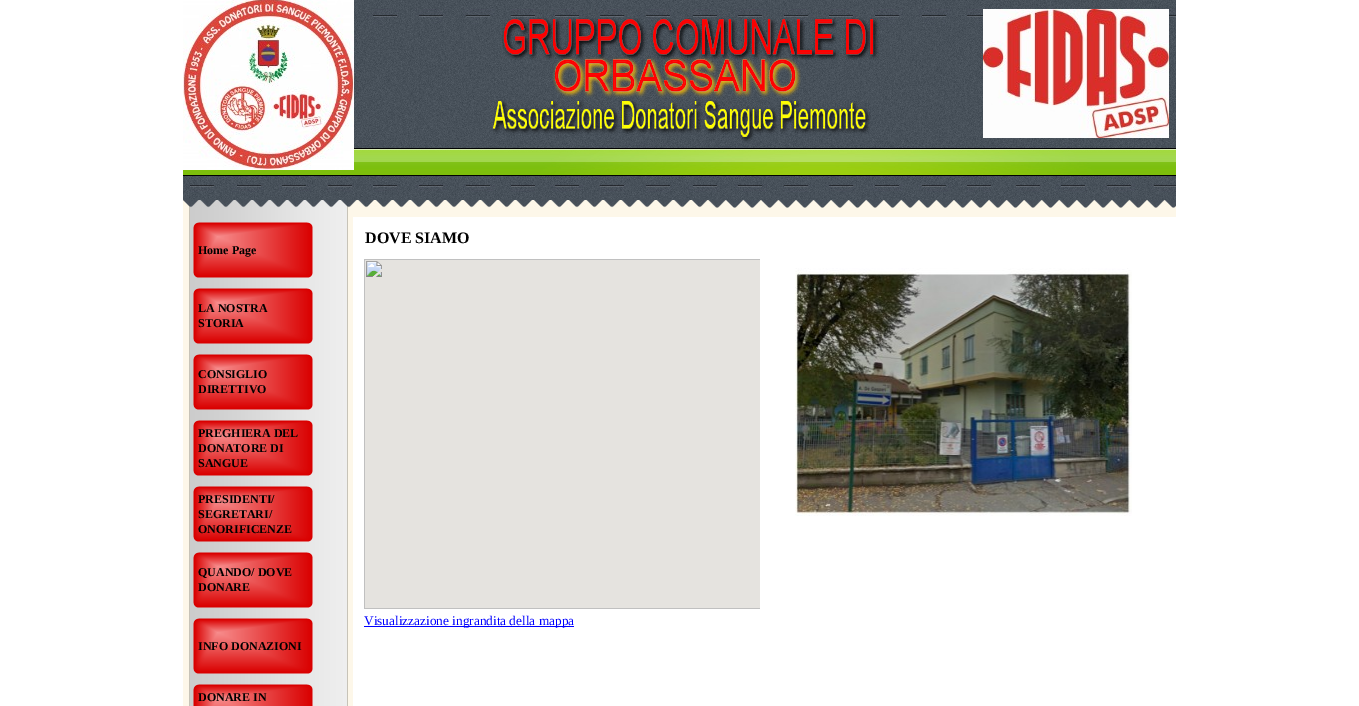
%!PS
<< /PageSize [1359 706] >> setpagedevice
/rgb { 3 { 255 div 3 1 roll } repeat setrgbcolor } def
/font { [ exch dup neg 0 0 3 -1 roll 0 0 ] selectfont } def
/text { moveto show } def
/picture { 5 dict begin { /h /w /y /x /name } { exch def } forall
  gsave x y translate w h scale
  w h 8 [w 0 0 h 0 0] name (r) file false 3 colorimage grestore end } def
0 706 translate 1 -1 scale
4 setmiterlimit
255 255 255 rgb
0 0 1359 706 rectfill
(img_01.rgb) 183 0 993 217 picture
(img_02.rgb) 183 0 171 170 picture
(img_03.rgb) 502 18 377 42 picture
(img_04.rgb) 983 9 186 129 picture
(img_05.rgb) 553 57 248 41 picture
(img_06.rgb) 493 99 378 43 picture
(img_07.rgb) 183 217 170 489 picture
(img_08.rgb) 193 222 120 56 picture
(img_08.rgb) 193 288 120 56 picture
(img_08.rgb) 193 354 120 56 picture
(img_08.rgb) 193 420 120 56 picture
(img_08.rgb) 193 486 120 56 picture
(img_08.rgb) 193 552 120 56 picture
(img_08.rgb) 193 618 120 56 picture
(img_09.rgb) 193 684 120 22 picture
(img_10.rgb) 795 268 337 248 picture
(img_11.rgb) 364 259 396 350 picture
0 0 255 rgb
364 626 210 1 rectfill
/LiberationSerif-Bold 12 font
0 0 0 rgb
(Home Page) 198 254 text
(LA NOSTRA) 198 312 text
(STORIA) 198 327 text
(CONSIGLIO) 198 378 text
(DIRETTIVO) 198 393 text
(PREGHIERA DEL) 198 437 text
(DONATORE DI) 198 452 text
(SANGUE) 198 467 text
(PRESIDENTI/) 198 503 text
(SEGRETARI/) 198 518 text
(ONORIFICENZE) 198 533 text
(QUANDO/ DOVE) 198 576 text
(DONARE) 198 591 text
(INFO DONAZIONI) 198 650 text
(DONARE IN) 198 701 text
/LiberationSerif-Bold 16 font
(DOVE SIAMO) 365 243 text
/LiberationSerif-Regular 13.3 font
0 0 255 rgb
(Visualizzazione ingrandita della mappa) 364 625 text
showpage
